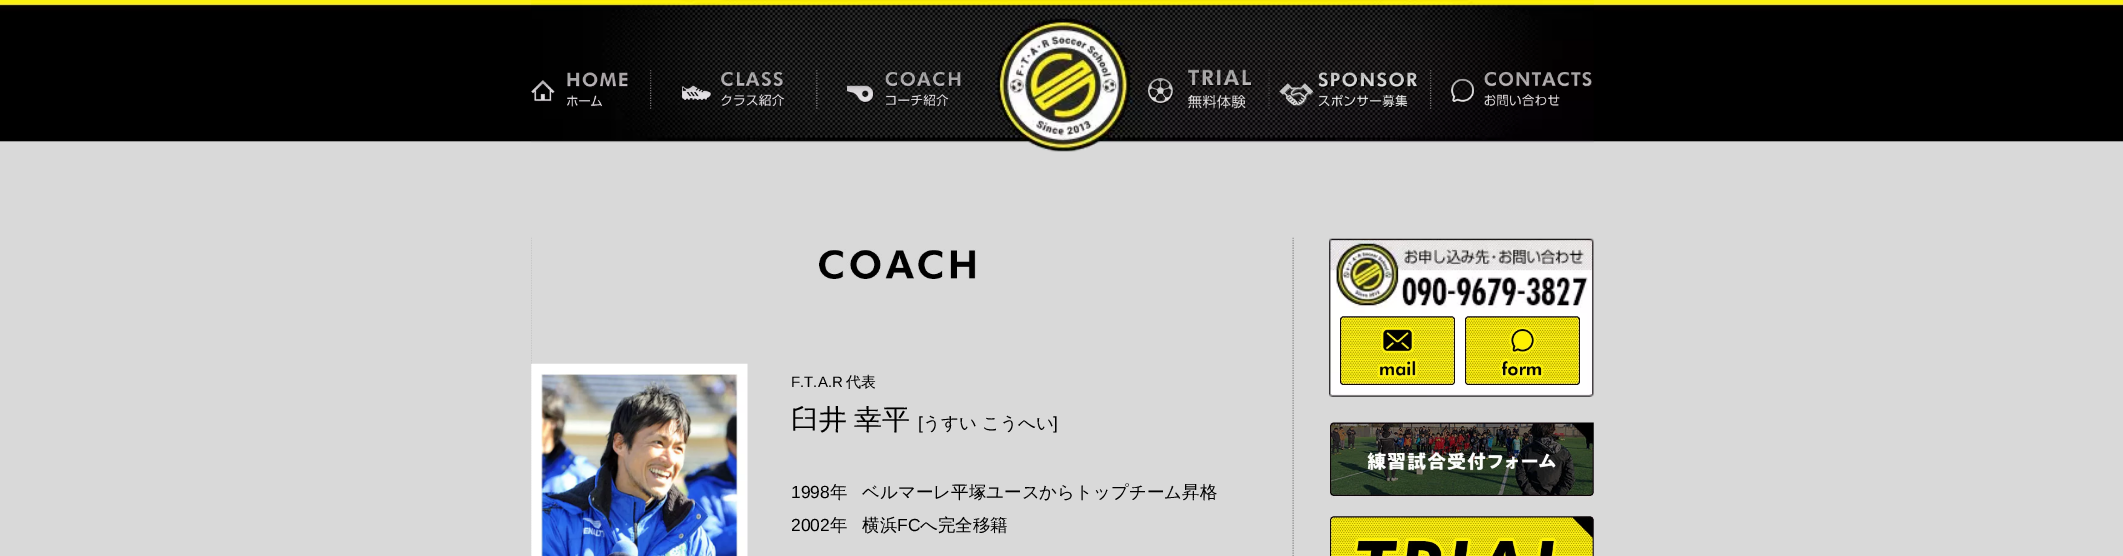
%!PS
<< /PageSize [2123 556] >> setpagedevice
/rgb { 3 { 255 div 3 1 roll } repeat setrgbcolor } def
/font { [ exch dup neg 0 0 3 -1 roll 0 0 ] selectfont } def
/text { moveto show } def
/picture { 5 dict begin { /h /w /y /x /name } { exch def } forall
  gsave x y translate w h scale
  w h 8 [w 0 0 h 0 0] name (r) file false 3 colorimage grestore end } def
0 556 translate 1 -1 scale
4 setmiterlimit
217 217 217 rgb
0 0 2123 556 rectfill
(img_01.rgb) 0 0 2123 142 picture
(img_02.rgb) 531 0 1063 152 picture
(img_03.rgb) 531 70 121 39 picture
(img_04.rgb) 682 70 136 39 picture
(img_05.rgb) 847 72 114 36 picture
(img_06.rgb) 1148 69 104 41 picture
(img_07.rgb) 1268 70 164 39 picture
(img_08.rgb) 1451 72 141 35 picture
(img_09.rgb) 531 237 763 319 picture
(img_10.rgb) 819 249 157 30 picture
(img_11.rgb) 531 363 217 193 picture
(img_12.rgb) 1329 238 265 159 picture
(img_13.rgb) 1340 316 115 69 picture
(img_14.rgb) 1465 316 115 69 picture
(img_15.rgb) 1330 422 264 77 picture
(img_16.rgb) 1330 516 264 40 picture
/LiberationSans-Regular 15 font
0 0 0 rgb
(F.T.A.R) 791 387 text
/WenQuanYiZenHei-Medium 15 font
(代表) 846 387 text
/WenQuanYiZenHei-Medium 28 font
791 429 moveto -1 0 32 (臼井 幸平) widthshow
/LiberationSans-Regular 17.5 font
([) 918 429 text
/WenQuanYiZenHei-Medium 17.5 font
(うすい こうへい) 923 429 text
/LiberationSans-Regular 17.5 font
(]) 1053 429 text
(1998) 791 498 text
/WenQuanYiZenHei-Medium 17.5 font
(年) 830 498 text
(ベルマーレ平塚ユースからトップチーム昇格) 862 498 text
/LiberationSans-Regular 17.5 font
(2002) 791 531 text
/WenQuanYiZenHei-Medium 17.5 font
(年) 830 531 text
(横浜) 862 531 text
/LiberationSans-Regular 17.5 font
(FC) 897 531 text
/WenQuanYiZenHei-Medium 17.5 font
(へ完全移籍) 920 531 text
showpage
